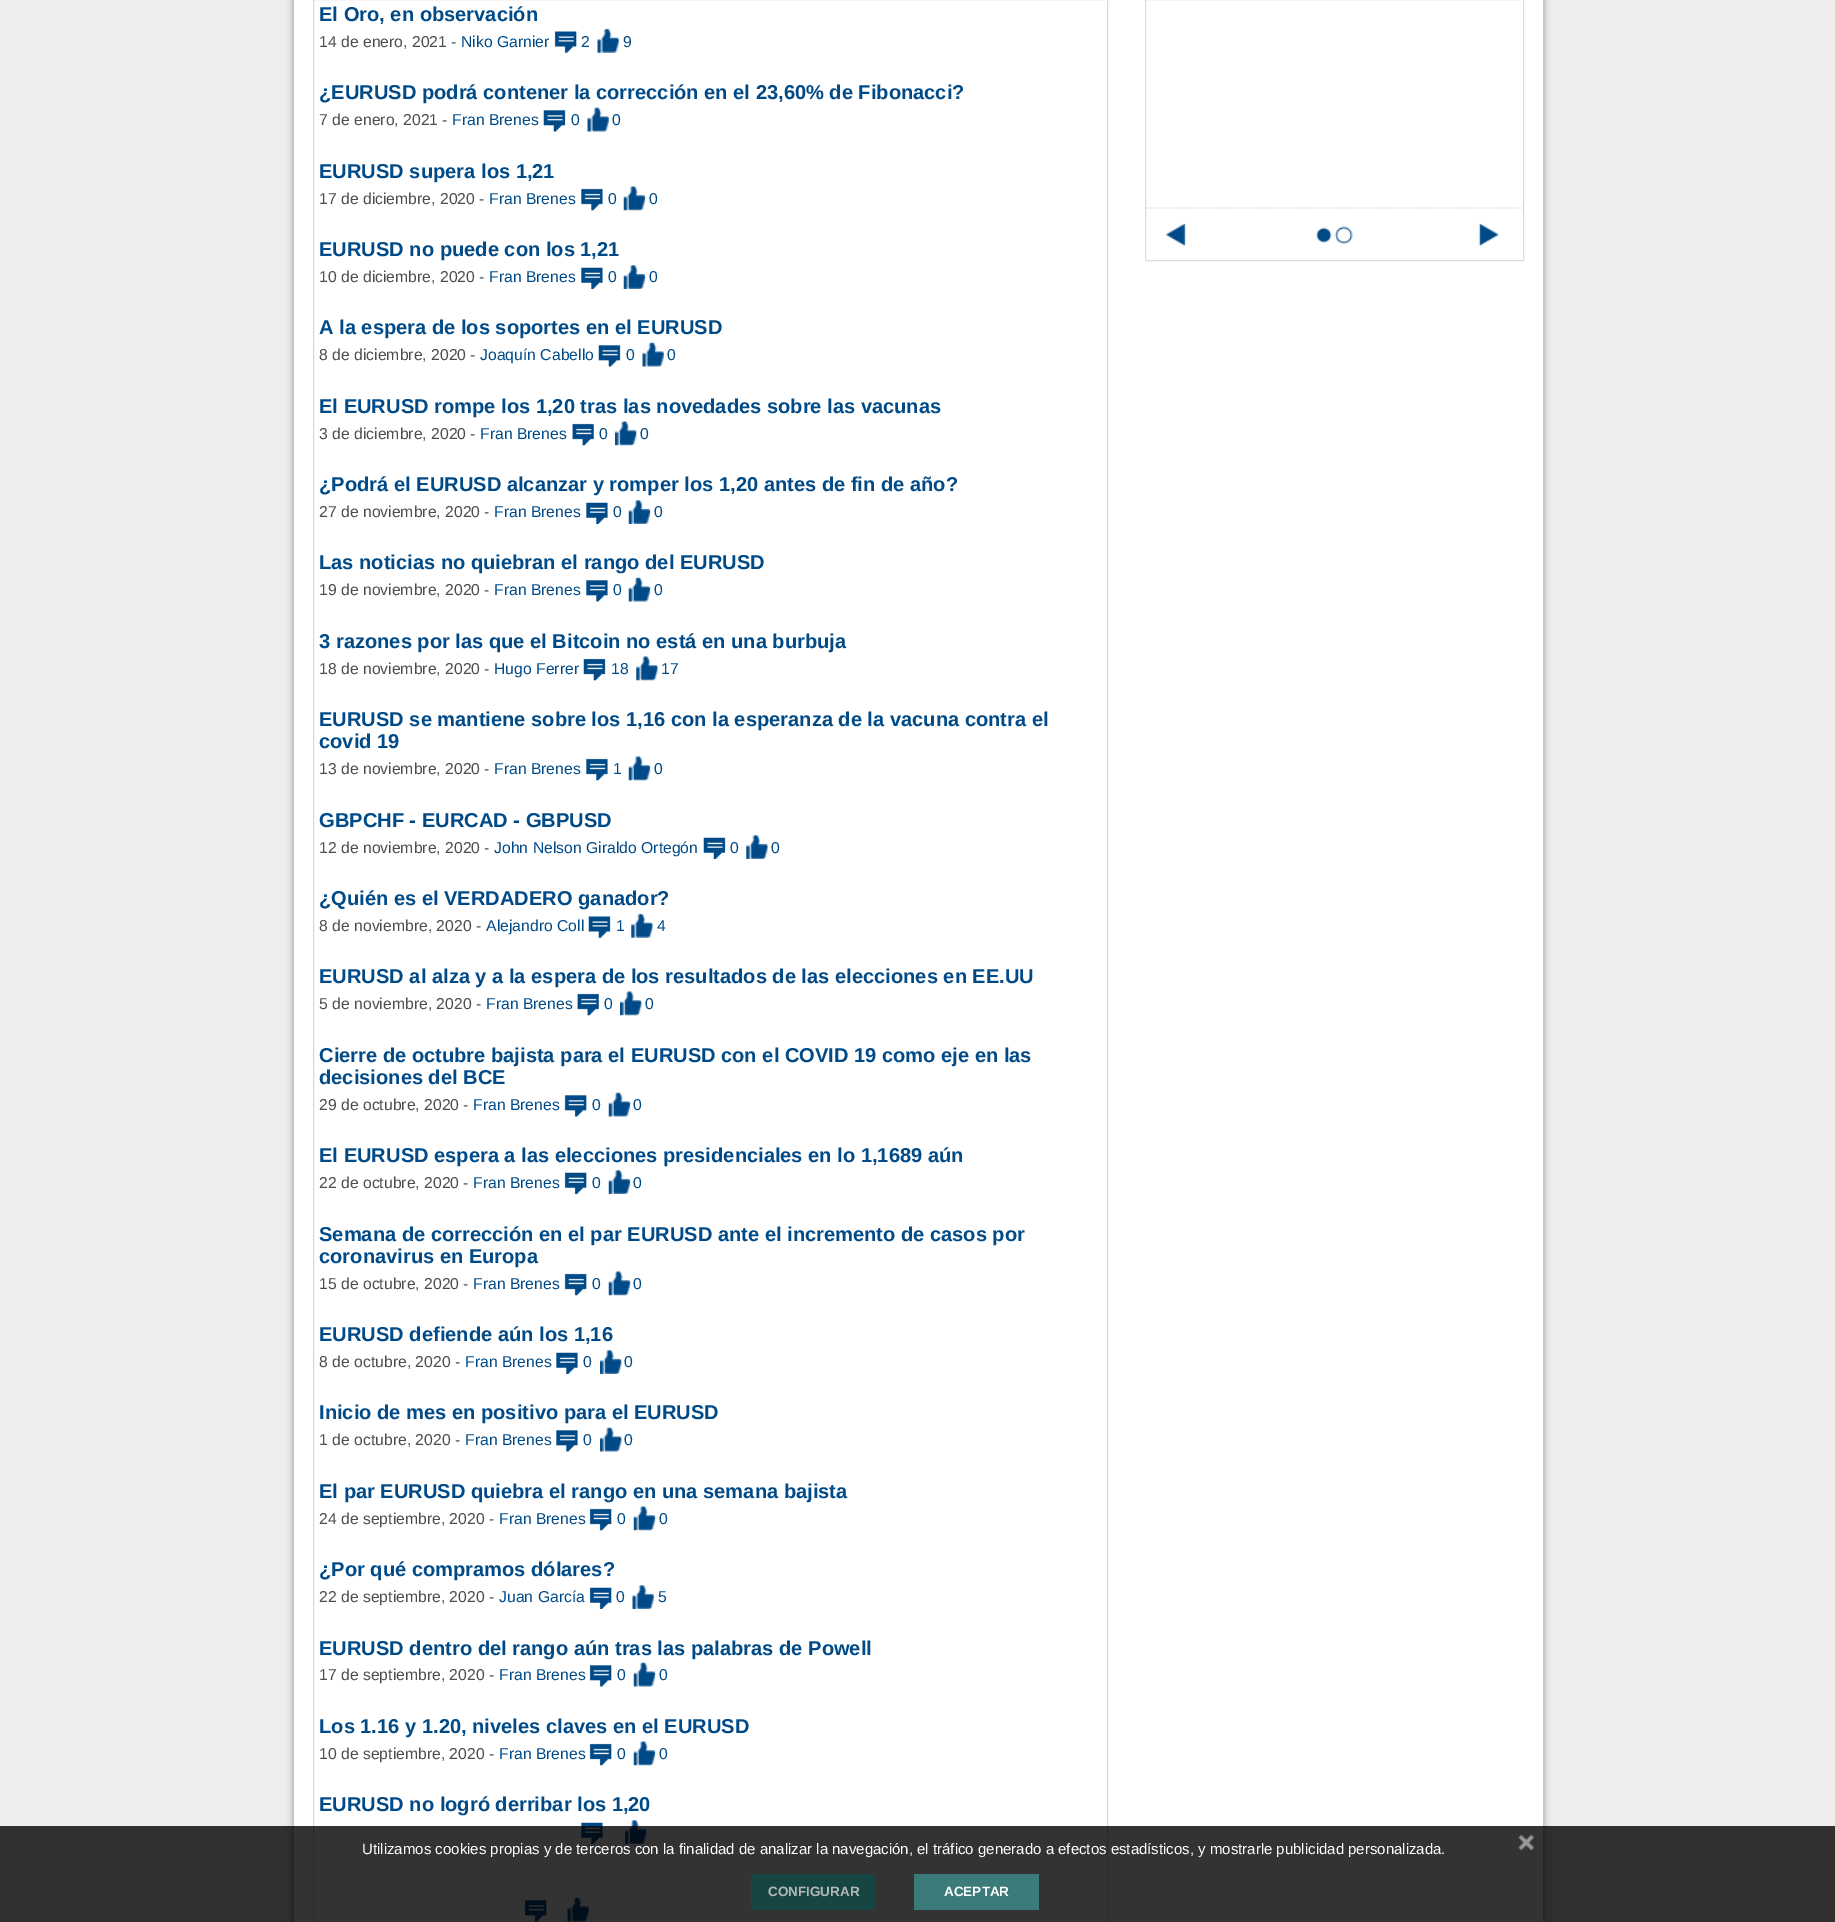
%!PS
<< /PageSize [1835 1922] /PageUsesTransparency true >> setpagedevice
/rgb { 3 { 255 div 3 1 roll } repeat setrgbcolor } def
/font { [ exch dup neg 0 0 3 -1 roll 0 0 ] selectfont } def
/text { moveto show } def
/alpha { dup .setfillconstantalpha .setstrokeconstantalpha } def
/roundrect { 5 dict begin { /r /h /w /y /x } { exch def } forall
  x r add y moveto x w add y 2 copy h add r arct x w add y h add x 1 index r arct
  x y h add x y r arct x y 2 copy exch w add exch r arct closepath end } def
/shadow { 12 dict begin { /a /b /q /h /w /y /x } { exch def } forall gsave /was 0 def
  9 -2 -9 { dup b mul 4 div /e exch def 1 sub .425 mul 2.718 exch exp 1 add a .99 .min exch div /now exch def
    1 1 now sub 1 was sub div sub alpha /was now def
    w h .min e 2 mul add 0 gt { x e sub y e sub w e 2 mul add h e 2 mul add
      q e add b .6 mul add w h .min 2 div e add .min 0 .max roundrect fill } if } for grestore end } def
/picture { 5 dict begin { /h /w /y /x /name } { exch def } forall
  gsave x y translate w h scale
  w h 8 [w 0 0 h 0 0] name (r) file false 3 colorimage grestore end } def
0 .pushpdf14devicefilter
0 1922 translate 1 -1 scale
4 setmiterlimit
238 238 238 rgb
0 0 1835 1922 rectfill
131 131 131 rgb
293 -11 1251 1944 0 3.5 0.7 shadow
255 255 255 rgb
294 0 1249 1922 rectfill
217 217 217 rgb
313.5 -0.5 794 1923 rectstroke
(img_01.rgb) 554 31 23 22 picture
(img_02.rgb) 597 28 22 25 picture
(img_03.rgb) 543 110 23 22 picture
(img_04.rgb) 587 107 22 25 picture
(img_05.rgb) 581 188 22 23 picture
(img_06.rgb) 623 186 23 25 picture
(img_07.rgb) 581 267 22 22 picture
(img_08.rgb) 623 265 23 24 picture
(img_03.rgb) 598 345 23 22 picture
(img_09.rgb) 642 342 22 25 picture
(img_10.rgb) 572 423 22 23 picture
(img_11.rgb) 615 421 22 25 picture
(img_12.rgb) 586 502 22 22 picture
(img_13.rgb) 628 500 23 24 picture
(img_14.rgb) 586 580 22 22 picture
(img_15.rgb) 628 577 23 25 picture
(img_16.rgb) 583 658 23 23 picture
(img_17.rgb) 636 656 22 25 picture
(img_05.rgb) 586 758 22 23 picture
(img_06.rgb) 628 756 23 25 picture
(img_18.rgb) 703 837 23 22 picture
(img_19.rgb) 746 835 22 24 picture
(img_20.rgb) 588 916 23 22 picture
(img_21.rgb) 631 913 22 25 picture
(img_10.rgb) 577 993 22 23 picture
(img_11.rgb) 620 991 22 25 picture
(img_22.rgb) 564 1095 23 22 picture
(img_15.rgb) 608 1092 23 25 picture
(img_23.rgb) 564 1172 23 22 picture
(img_08.rgb) 608 1170 23 24 picture
(img_24.rgb) 564 1273 23 23 picture
(img_06.rgb) 608 1271 23 25 picture
(img_07.rgb) 556 1352 22 22 picture
(img_25.rgb) 600 1350 22 24 picture
(img_14.rgb) 556 1430 22 22 picture
(img_26.rgb) 600 1427 22 25 picture
(img_24.rgb) 589 1508 23 23 picture
(img_06.rgb) 633 1506 23 25 picture
(img_23.rgb) 589 1587 23 22 picture
(img_27.rgb) 632 1585 22 24 picture
(img_22.rgb) 589 1665 23 22 picture
(img_15.rgb) 633 1662 23 25 picture
(img_24.rgb) 589 1743 23 23 picture
(img_06.rgb) 633 1741 23 25 picture
(img_07.rgb) 581 1822 22 22 picture
(img_25.rgb) 625 1820 22 24 picture
(img_28.rgb) 524 1900 23 22 picture
(img_04.rgb) 567 1897 22 25 picture
221 221 221 rgb
1145.5 -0.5 378 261 rectstroke
1.2 setlinewidth
[1.25 1.25] 0 setdash
1146 208 moveto 376.5 0 rlineto stroke
(img_29.rgb) 1166 223 20 23 picture
(img_30.rgb) 1316 227 16 16 picture
(img_31.rgb) 1335 226 18 19 picture
(img_32.rgb) 1478 223 21 23 picture
0.8 alpha
0 0 0 rgb
0 1826 1835 96 rectfill
1 alpha
(img_33.rgb) 1518 1835 16 16 picture
21 70 68 rgb
751 1874 125 36 rectfill
59 123 122 rgb
914 1874 125 36 rectfill
/LiberationSans-Bold 20.1 font
0 74 135 rgb
(El Oro, en observación) 319 21 text
/LiberationSans-Regular 15.75 font
77 77 77 rgb
(14 de enero, 2021 -) 319 47 text
0 74 135 rgb
(Niko Garnier) 461 47 text
(2) 581 47 text
(9) 623 47 text
/LiberationSans-Bold 20.1 font
(¿EURUSD podrá contener la corrección en el 23,60% de Fibonacci?) 319 99 text
/LiberationSans-Regular 15.75 font
77 77 77 rgb
(7 de enero, 2021 -) 319 125 text
0 74 135 rgb
(Fran Brenes) 452 125 text
(0) 571 125 text
(0) 612 125 text
/LiberationSans-Bold 20.1 font
(EURUSD supera los 1,21) 319 178 text
/LiberationSans-Regular 15.75 font
77 77 77 rgb
(17 de diciembre, 2020 -) 319 204 text
0 74 135 rgb
(Fran Brenes) 489 204 text
(0) 608 204 text
(0) 649 204 text
/LiberationSans-Bold 20.1 font
(EURUSD no puede con los 1,21) 319 256 text
/LiberationSans-Regular 15.75 font
77 77 77 rgb
(10 de diciembre, 2020 -) 319 282 text
0 74 135 rgb
(Fran Brenes) 489 282 text
(0) 608 282 text
(0) 649 282 text
/LiberationSans-Bold 20.1 font
(A la espera de los soportes en el EURUSD) 319 334 text
/LiberationSans-Regular 15.75 font
77 77 77 rgb
(8 de diciembre, 2020 -) 319 360 text
0 74 135 rgb
(Joaquín Cabello) 480 360 text
(0) 626 360 text
(0) 667 360 text
/LiberationSans-Bold 20.1 font
(El EURUSD rompe los 1,20 tras las novedades sobre las vacunas) 319 413 text
/LiberationSans-Regular 15.75 font
77 77 77 rgb
(3 de diciembre, 2020 -) 319 439 text
0 74 135 rgb
(Fran Brenes) 480 439 text
(0) 599 439 text
(0) 640 439 text
/LiberationSans-Bold 20.1 font
(¿Podrá el EURUSD alcanzar y romper los 1,20 antes de fin de año?) 319 491 text
/LiberationSans-Regular 15.75 font
77 77 77 rgb
(27 de noviembre, 2020 -) 319 517 text
0 74 135 rgb
(Fran Brenes) 494 517 text
(0) 613 517 text
(0) 654 517 text
/LiberationSans-Bold 20.1 font
(Las noticias no quiebran el rango del EURUSD) 319 569 text
/LiberationSans-Regular 15.75 font
77 77 77 rgb
(19 de noviembre, 2020 -) 319 595 text
0 74 135 rgb
(Fran Brenes) 494 595 text
(0) 613 595 text
(0) 654 595 text
/LiberationSans-Bold 20.1 font
(3 razones por las que el Bitcoin no está en una burbuja) 319 648 text
/LiberationSans-Regular 15.75 font
77 77 77 rgb
(18 de noviembre, 2020 -) 319 674 text
0 74 135 rgb
(Hugo Ferrer) 494 674 text
(18) 611 674 text
(17) 661 674 text
/LiberationSans-Bold 20.1 font
(EURUSD se mantiene sobre los 1,16 con la esperanza de la vacuna contra el) 319 726 text
(covid 19) 319 748 text
/LiberationSans-Regular 15.75 font
77 77 77 rgb
(13 de noviembre, 2020 -) 319 774 text
0 74 135 rgb
(Fran Brenes) 494 774 text
(1) 613 774 text
(0) 654 774 text
/LiberationSans-Bold 20.1 font
(GBPCHF - EURCAD - GBPUSD) 319 827 text
/LiberationSans-Regular 15.75 font
77 77 77 rgb
(12 de noviembre, 2020 -) 319 853 text
0 74 135 rgb
(John Nelson Giraldo Ortegón) 494 853 text
(0) 730 853 text
(0) 771 853 text
/LiberationSans-Bold 20.1 font
(¿Quién es el VERDADERO ganador?) 319 905 text
/LiberationSans-Regular 15.75 font
77 77 77 rgb
(8 de noviembre, 2020 -) 319 931 text
0 74 135 rgb
(Alejandro Coll) 486 931 text
(1) 616 931 text
(4) 657 931 text
/LiberationSans-Bold 20.1 font
(EURUSD al alza y a la espera de los resultados de las elecciones en EE.UU) 319 983 text
/LiberationSans-Regular 15.75 font
77 77 77 rgb
(5 de noviembre, 2020 -) 319 1009 text
0 74 135 rgb
(Fran Brenes) 486 1009 text
(0) 604 1009 text
(0) 645 1009 text
/LiberationSans-Bold 20.1 font
(Cierre de octubre bajista para el EURUSD con el COVID 19 como eje en las) 319 1062 text
(decisiones del BCE) 319 1084 text
/LiberationSans-Regular 15.75 font
77 77 77 rgb
(29 de octubre, 2020 -) 319 1110 text
0 74 135 rgb
(Fran Brenes) 473 1110 text
(0) 592 1110 text
(0) 633 1110 text
/LiberationSans-Bold 20.1 font
(El EURUSD espera a las elecciones presidenciales en lo 1,1689 aún) 319 1162 text
/LiberationSans-Regular 15.75 font
77 77 77 rgb
(22 de octubre, 2020 -) 319 1188 text
0 74 135 rgb
(Fran Brenes) 473 1188 text
(0) 592 1188 text
(0) 633 1188 text
/LiberationSans-Bold 20.1 font
(Semana de corrección en el par EURUSD ante el incremento de casos por) 319 1241 text
(coronavirus en Europa) 319 1263 text
/LiberationSans-Regular 15.75 font
77 77 77 rgb
(15 de octubre, 2020 -) 319 1289 text
0 74 135 rgb
(Fran Brenes) 473 1289 text
(0) 592 1289 text
(0) 633 1289 text
/LiberationSans-Bold 20.1 font
(EURUSD defiende aún los 1,16) 319 1341 text
/LiberationSans-Regular 15.75 font
77 77 77 rgb
(8 de octubre, 2020 -) 319 1367 text
0 74 135 rgb
(Fran Brenes) 465 1367 text
(0) 583 1367 text
(0) 624 1367 text
/LiberationSans-Bold 20.1 font
(Inicio de mes en positivo para el EURUSD) 319 1419 text
/LiberationSans-Regular 15.75 font
77 77 77 rgb
(1 de octubre, 2020 -) 319 1445 text
0 74 135 rgb
(Fran Brenes) 465 1445 text
(0) 583 1445 text
(0) 624 1445 text
/LiberationSans-Bold 20.1 font
(El par EURUSD quiebra el rango en una semana bajista) 319 1498 text
/LiberationSans-Regular 15.75 font
77 77 77 rgb
(24 de septiembre, 2020 -) 319 1524 text
0 74 135 rgb
(Fran Brenes) 499 1524 text
(0) 617 1524 text
(0) 659 1524 text
/LiberationSans-Bold 20.1 font
(¿Por qué compramos dólares?) 319 1576 text
/LiberationSans-Regular 15.75 font
77 77 77 rgb
(22 de septiembre, 2020 -) 319 1602 text
0 74 135 rgb
(Juan García) 499 1602 text
(0) 616 1602 text
(5) 658 1602 text
/LiberationSans-Bold 20.1 font
(EURUSD dentro del rango aún tras las palabras de Powell) 319 1655 text
/LiberationSans-Regular 15.75 font
77 77 77 rgb
(17 de septiembre, 2020 -) 319 1680 text
0 74 135 rgb
(Fran Brenes) 499 1680 text
(0) 617 1680 text
(0) 659 1680 text
/LiberationSans-Bold 20.1 font
(Los 1.16 y 1.20, niveles claves en el EURUSD) 319 1733 text
/LiberationSans-Regular 15.75 font
77 77 77 rgb
(10 de septiembre, 2020 -) 319 1759 text
0 74 135 rgb
(Fran Brenes) 499 1759 text
(0) 617 1759 text
(0) 659 1759 text
/LiberationSans-Bold 20.1 font
(EURUSD no logró derribar los 1,20) 319 1811 text
/LiberationSans-Regular 15 font
255 255 255 rgb
(Utilizamos cookies propias y de terceros con la finalidad de analizar la navegación, el tráfico generado a efectos estadísticos, y mostrarle publicidad personalizada.) 362 1854 text
/LiberationSans-Bold 13.5 font
183 183 183 rgb
(CONFIGURAR) 768 1896 text
255 255 255 rgb
(ACEPTAR) 944 1896 text
.poppdf14devicefilter showpage
